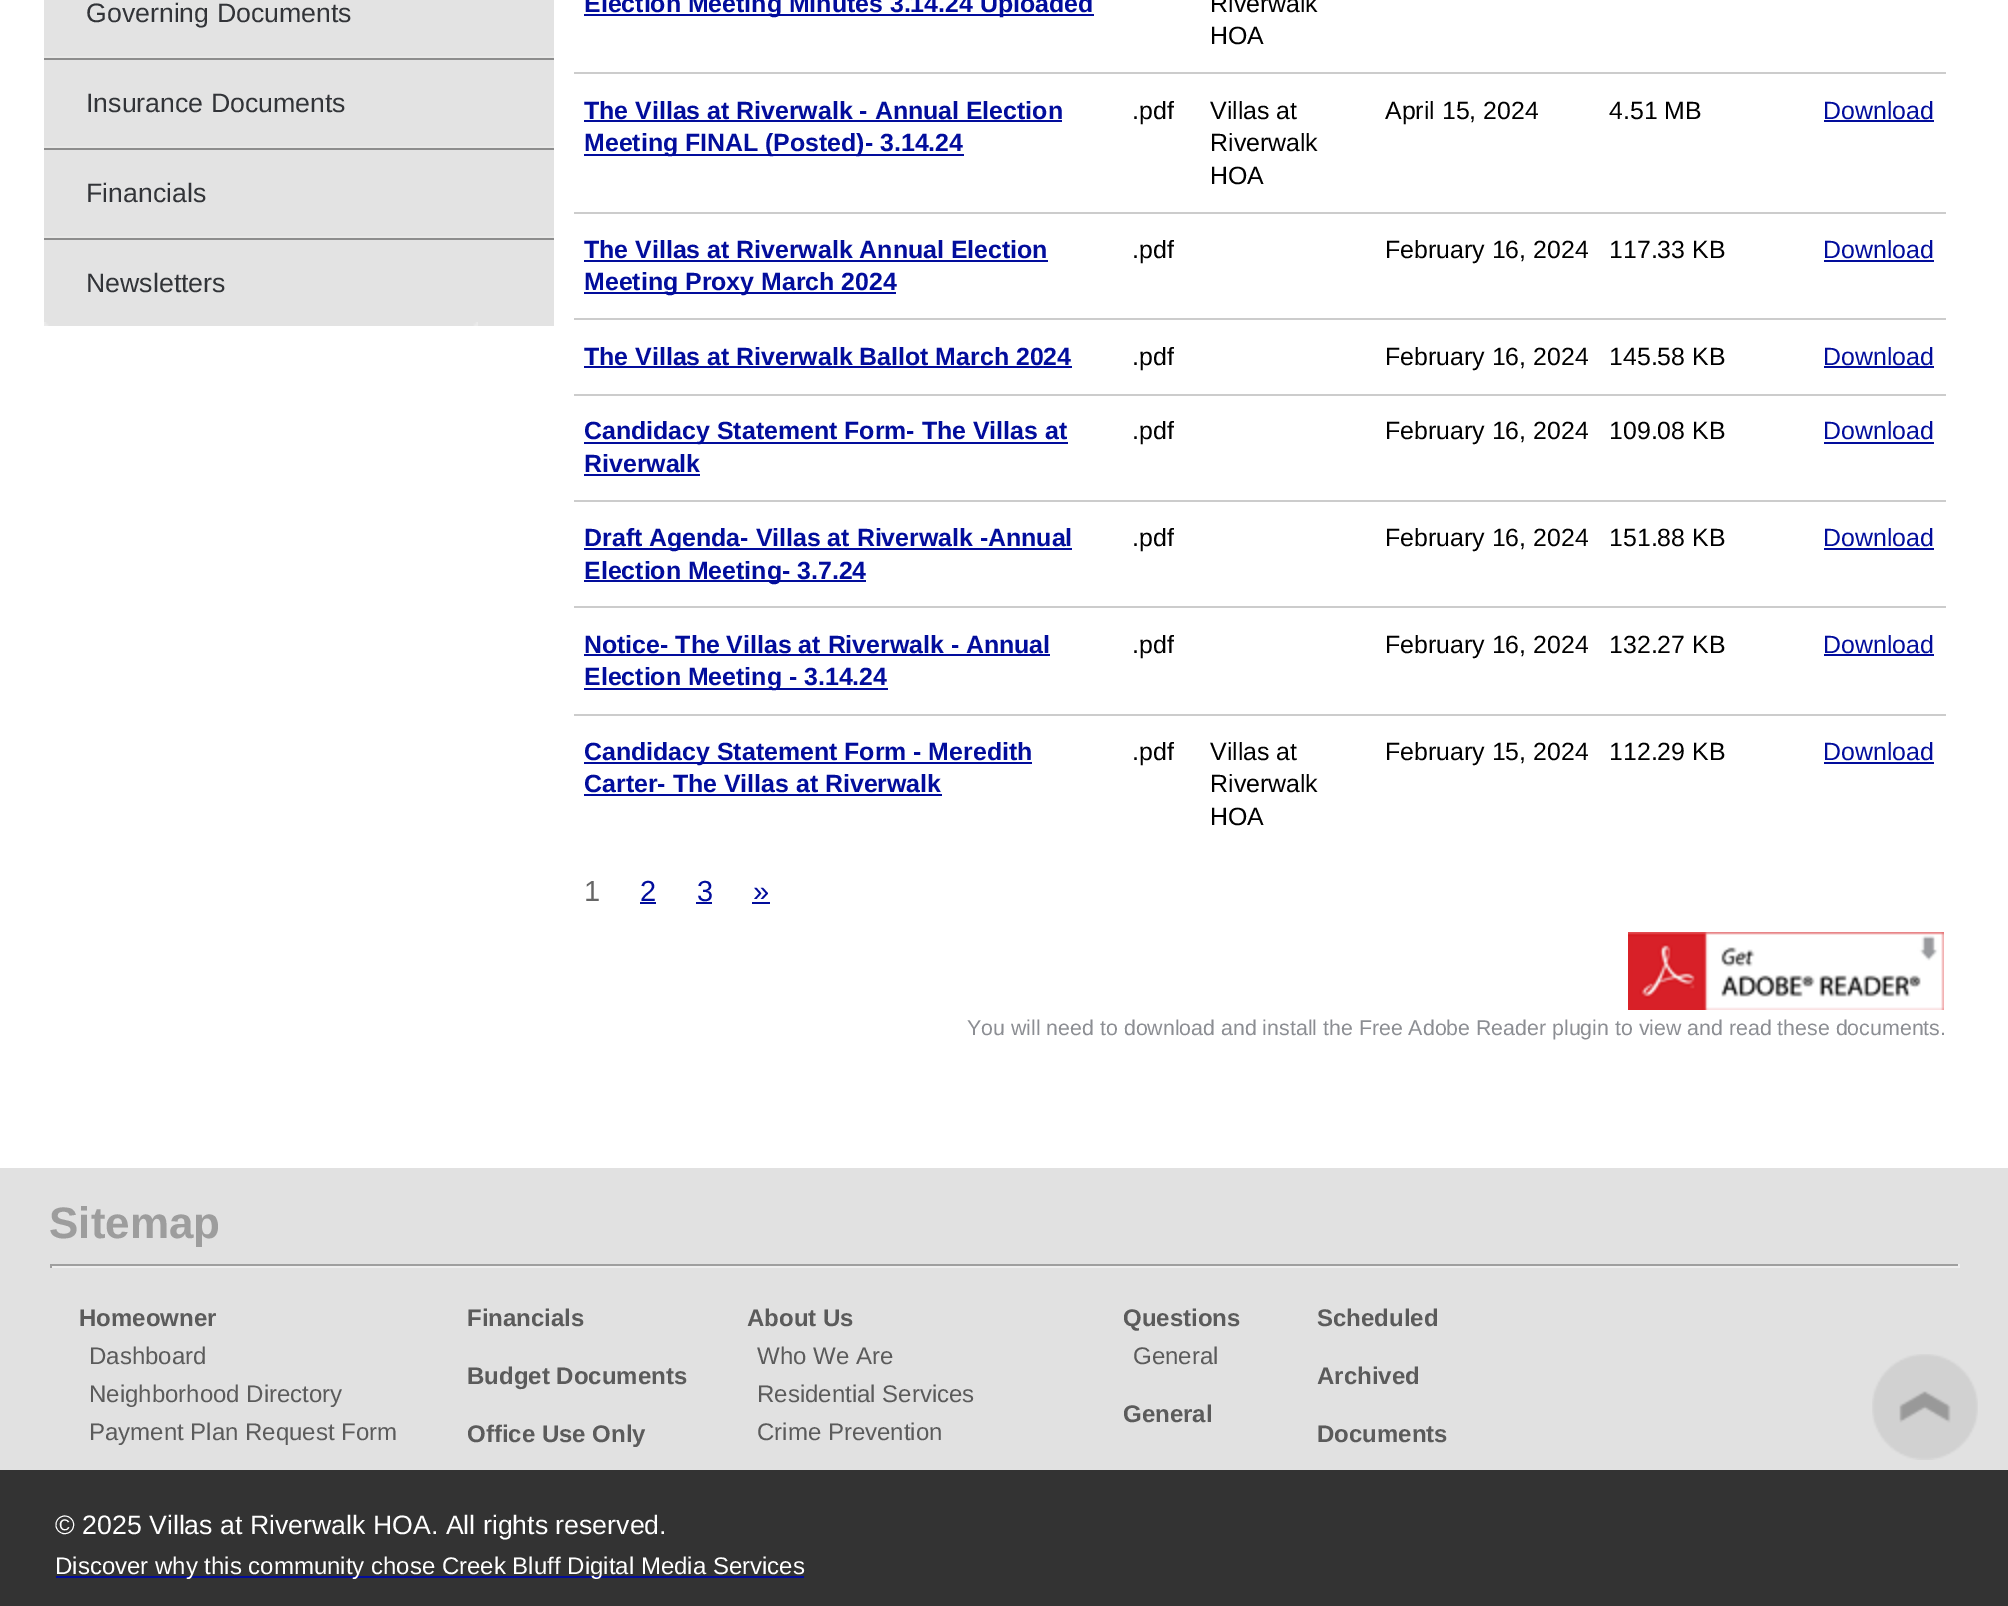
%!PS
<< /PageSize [2008 1606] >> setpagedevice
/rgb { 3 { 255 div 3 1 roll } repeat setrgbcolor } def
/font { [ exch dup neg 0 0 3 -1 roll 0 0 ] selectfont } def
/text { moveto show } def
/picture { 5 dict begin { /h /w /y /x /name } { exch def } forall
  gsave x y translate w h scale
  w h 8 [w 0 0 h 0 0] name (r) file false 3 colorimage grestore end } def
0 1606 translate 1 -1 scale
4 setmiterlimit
255 255 255 rgb
0 0 2008 1606 rectfill
227 227 227 rgb
44 0 510 326 rectfill
232 232 231 rgb
44 56 510 2 rectfill
141 141 141 rgb
44 58 510 2 rectfill
232 232 231 rgb
44 146 510 2 rectfill
141 141 141 rgb
44 148 510 2 rectfill
232 232 231 rgb
44 236 510 2 rectfill
141 141 141 rgb
44 238 510 2 rectfill
(img_01.rgb) 44 322 434 4 picture
2 13 156 rgb
584 14 510 2 rectfill
584 120 478 2 rectfill
584 154 380 2 rectfill
204 204 204 rgb
574 72 1372 2 rectfill
2 13 156 rgb
1824 120 110 2 rectfill
584 260 464 2 rectfill
584 292 312 2 rectfill
204 204 204 rgb
574 212 1372 2 rectfill
2 13 156 rgb
1824 260 110 2 rectfill
584 366 488 2 rectfill
204 204 204 rgb
574 318 1372 2 rectfill
2 13 156 rgb
1824 366 110 2 rectfill
584 442 484 2 rectfill
584 474 116 2 rectfill
204 204 204 rgb
574 394 1372 2 rectfill
2 13 156 rgb
1824 442 110 2 rectfill
584 548 488 2 rectfill
584 580 282 2 rectfill
204 204 204 rgb
574 500 1372 2 rectfill
2 13 156 rgb
1824 548 110 2 rectfill
584 654 466 2 rectfill
584 688 304 2 rectfill
204 204 204 rgb
574 606 1372 2 rectfill
2 13 156 rgb
1824 654 110 2 rectfill
584 762 448 2 rectfill
584 794 358 2 rectfill
204 204 204 rgb
574 714 1372 2 rectfill
2 13 156 rgb
1824 762 110 2 rectfill
640 902 16 2 rectfill
696 902 16 2 rectfill
752 902 18 2 rectfill
(img_02.rgb) 1628 932 316 78 picture
225 225 225 rgb
0 1168 2008 302 rectfill
159 159 159 rgb
50 1264 1910 2 rectfill
238 238 238 rgb
1958 1264 2 4 rectfill
50 1266 1910 2 rectfill
159 159 159 rgb
50 1264 2 4 rectfill
(img_03.rgb) 1872 1354 106 106 picture
51 51 51 rgb
0 1470 2008 136 rectfill
2 13 156 rgb
56 1576 748 2 rectfill
/LiberationSans-Regular 26.7 font
50 52 56 rgb
(Governing Documents) 86 22 text
(Insurance Documents) 86 112 text
(Financials) 86 202 text
(Newsletters) 86 292 text
/LiberationSans-Bold 24.9 font
2 13 156 rgb
(Election Meeting Minutes 3.14.24 Uploaded) 584 12 text
/LiberationSans-Regular 24.9 font
0 0 0 rgb
(Riverwalk) 1210 12 text
(HOA) 1210 44 text
/LiberationSans-Bold 24.9 font
2 13 156 rgb
(The Villas at Riverwalk - Annual Election) 584 119 text
(Meeting FINAL \(Posted\)- 3.14.24) 584 151 text
/LiberationSans-Regular 24.9 font
0 0 0 rgb
(.pdf) 1132 119 text
(Villas at) 1210 119 text
(Riverwalk) 1210 151 text
(HOA) 1210 184 text
(April 15, 2024) 1385 119 text
(4.51 MB) 1609 119 text
2 13 156 rgb
(Download) 1823 119 text
/LiberationSans-Bold 24.9 font
(The Villas at Riverwalk Annual Election) 584 258 text
(Meeting Proxy March 2024) 584 290 text
/LiberationSans-Regular 24.9 font
0 0 0 rgb
(.pdf) 1132 258 text
(February 16, 2024) 1385 258 text
(117.33 KB) 1609 258 text
2 13 156 rgb
(Download) 1823 258 text
/LiberationSans-Bold 24.9 font
(The Villas at Riverwalk Ballot March 2024) 584 365 text
/LiberationSans-Regular 24.9 font
0 0 0 rgb
(.pdf) 1132 365 text
(February 16, 2024) 1385 365 text
(145.58 KB) 1609 365 text
2 13 156 rgb
(Download) 1823 365 text
/LiberationSans-Bold 24.9 font
(Candidacy Statement Form- The Villas at) 584 439 text
(Riverwalk) 584 472 text
/LiberationSans-Regular 24.9 font
0 0 0 rgb
(.pdf) 1132 439 text
(February 16, 2024) 1385 439 text
(109.08 KB) 1609 439 text
2 13 156 rgb
(Download) 1823 439 text
/LiberationSans-Bold 24.9 font
(Draft Agenda- Villas at Riverwalk -Annual) 584 546 text
(Election Meeting- 3.7.24) 584 579 text
/LiberationSans-Regular 24.9 font
0 0 0 rgb
(.pdf) 1132 546 text
(February 16, 2024) 1385 546 text
(151.88 KB) 1609 546 text
2 13 156 rgb
(Download) 1823 546 text
/LiberationSans-Bold 24.9 font
(Notice- The Villas at Riverwalk - Annual) 584 653 text
(Election Meeting - 3.14.24) 584 685 text
/LiberationSans-Regular 24.9 font
0 0 0 rgb
(.pdf) 1132 653 text
(February 16, 2024) 1385 653 text
(132.27 KB) 1609 653 text
2 13 156 rgb
(Download) 1823 653 text
/LiberationSans-Bold 24.9 font
(Candidacy Statement Form - Meredith) 584 760 text
(Carter- The Villas at Riverwalk) 584 792 text
/LiberationSans-Regular 24.9 font
0 0 0 rgb
(.pdf) 1132 760 text
(Villas at) 1210 760 text
(Riverwalk) 1210 792 text
(HOA) 1210 825 text
(February 15, 2024) 1385 760 text
(112.29 KB) 1609 760 text
2 13 156 rgb
(Download) 1823 760 text
/LiberationSans-Regular 29 font
102 102 102 rgb
(1) 584 901 text
2 13 156 rgb
(2) 640 901 text
(3) 697 901 text
(») 753 901 text
/LiberationSans-Regular 21.35 font
140 142 147 rgb
(You will need to download and install the Free Adobe Reader plugin to view and read these documents.) 967 1035 text
/LiberationSans-Bold 44 font
157 157 157 rgb
(Sitemap) 49 1238 text
/LiberationSans-Bold 24 font
91 91 91 rgb
(Homeowner) 79 1326 text
/LiberationSans-Regular 24 font
(Dashboard) 89 1364 text
(Neighborhood Directory) 89 1402 text
(Payment Plan Request Form) 89 1440 text
/LiberationSans-Bold 24 font
(Financials) 467 1326 text
(Budget Documents) 467 1384 text
(Office Use Only) 467 1442 text
(About Us) 747 1326 text
/LiberationSans-Regular 24 font
(Who We Are) 757 1364 text
(Residential Services) 757 1402 text
(Crime Prevention) 757 1440 text
/LiberationSans-Bold 24 font
(Questions) 1123 1326 text
/LiberationSans-Regular 24 font
(General) 1133 1364 text
/LiberationSans-Bold 24 font
(General) 1123 1422 text
(Scheduled) 1317 1326 text
(Archived) 1317 1384 text
(Documents) 1317 1442 text
/LiberationSans-Regular 26.7 font
255 255 255 rgb
(© 2025 Villas at Riverwalk HOA. All rights reserved.) 55 1534 text
/LiberationSans-Regular 24 font
(Discover why this community chose Creek Bluff Digital Media Services) 55 1574 text
showpage
